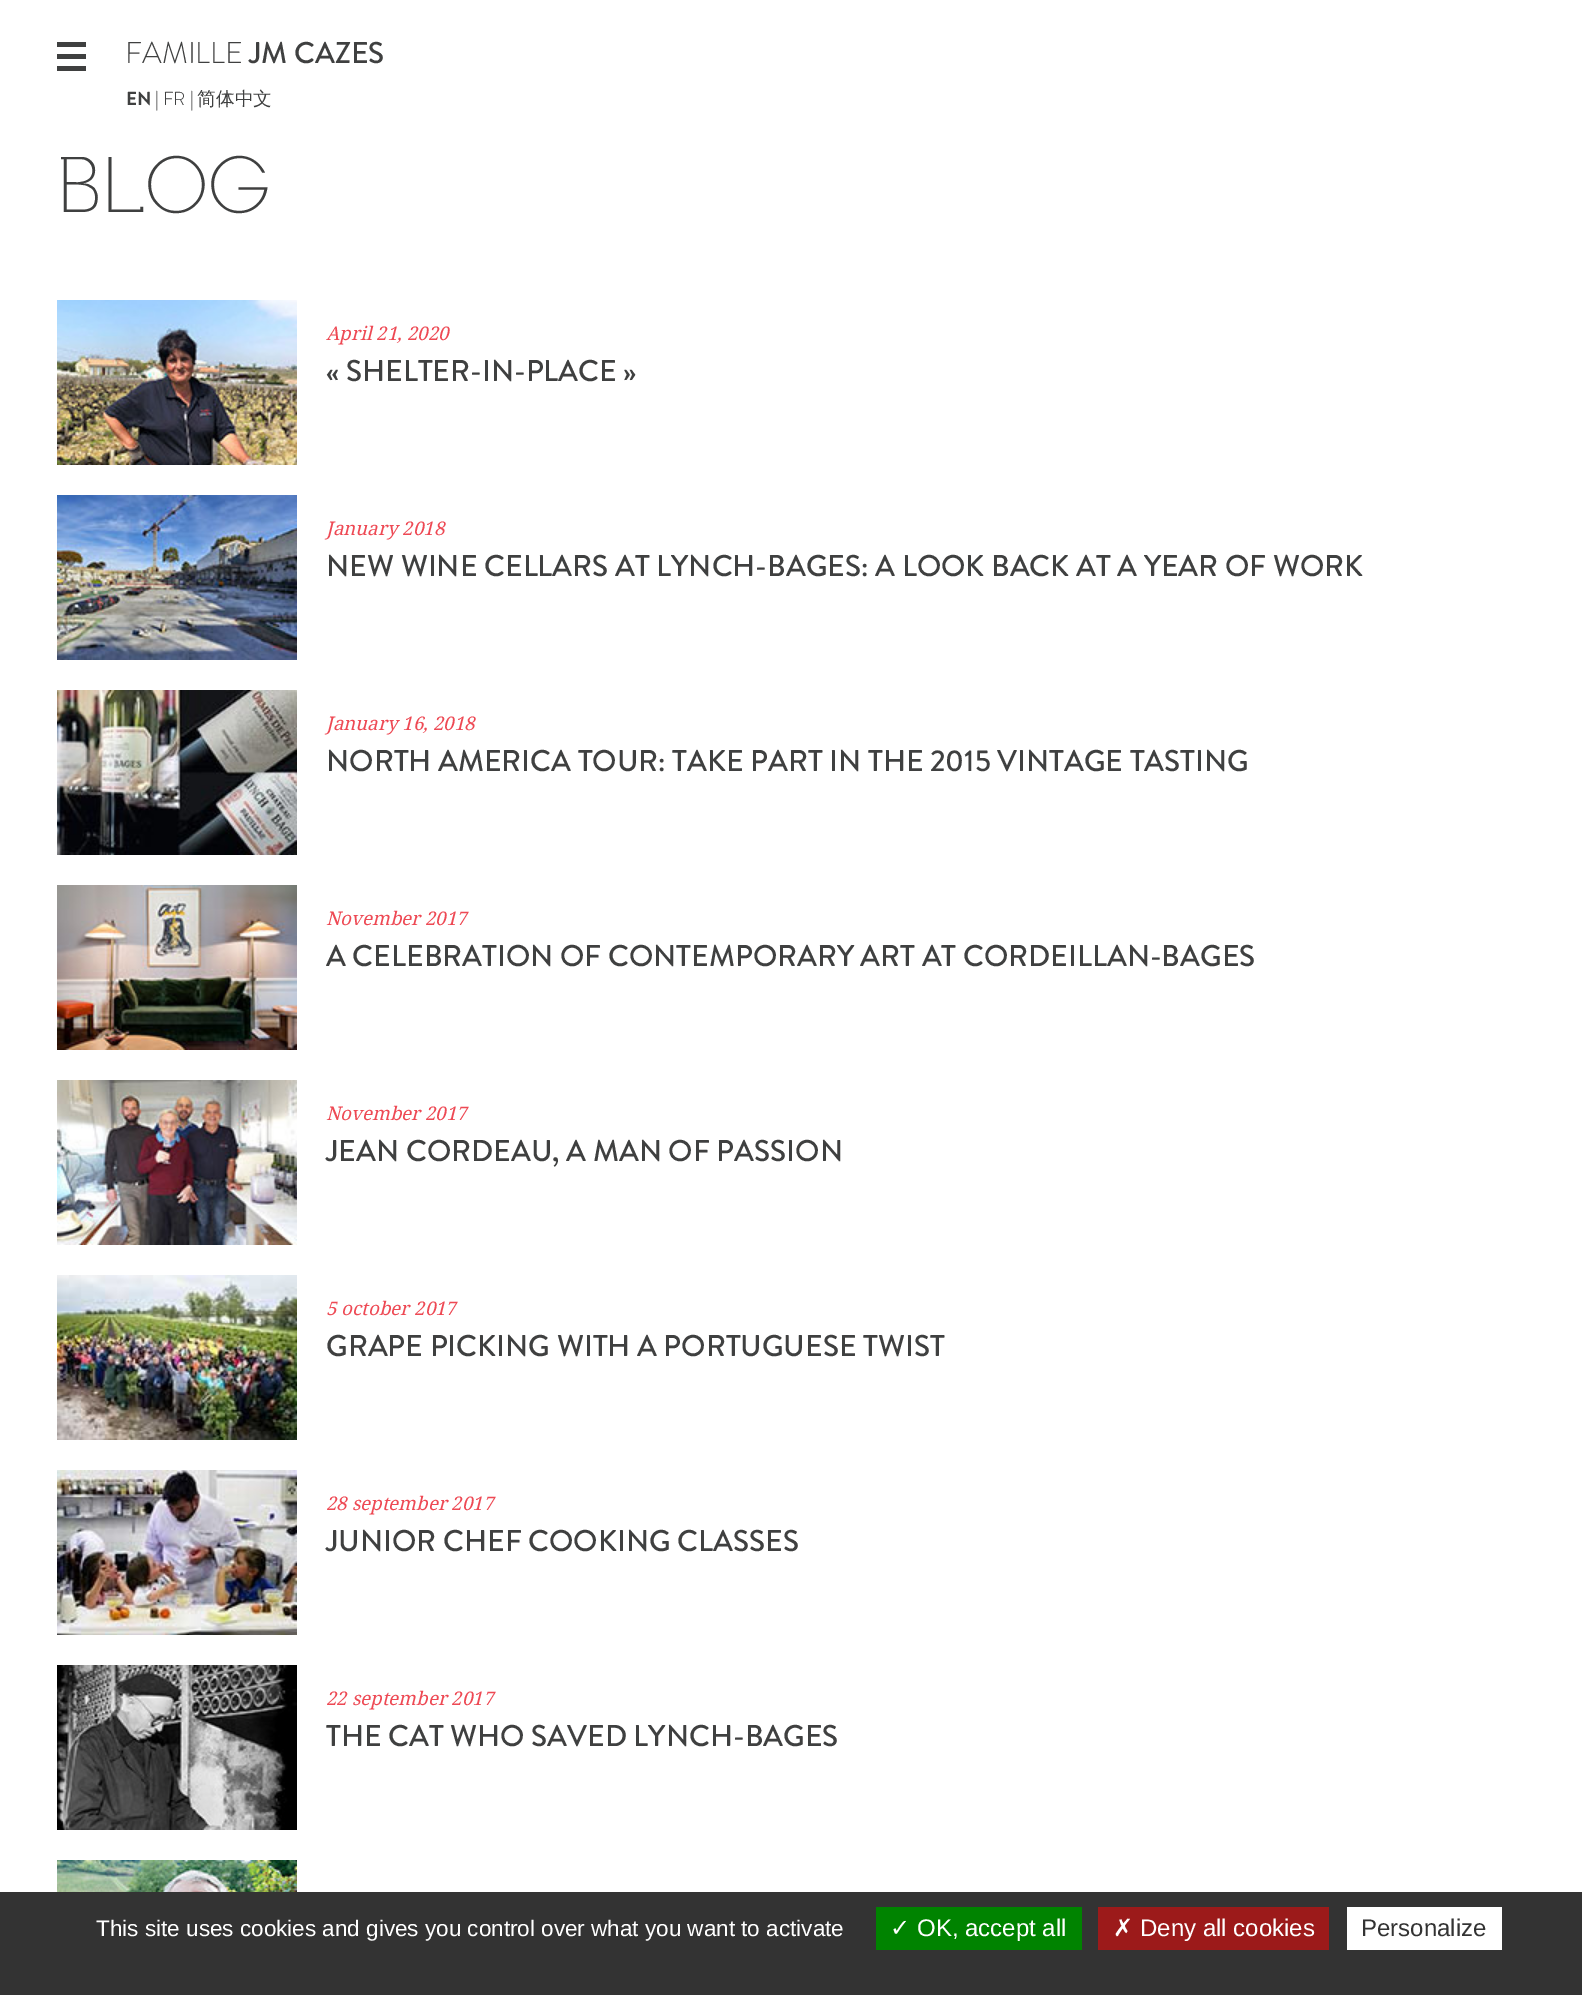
%!PS
<< /PageSize [1582 1995] >> setpagedevice
/rgb { 3 { 255 div 3 1 roll } repeat setrgbcolor } def
/font { [ exch dup neg 0 0 3 -1 roll 0 0 ] selectfont } def
/text { moveto show } def
/picture { 5 dict begin { /h /w /y /x /name } { exch def } forall
  gsave x y translate w h scale
  w h 8 [w 0 0 h 0 0] name (r) file false 3 colorimage grestore end } def
0 1995 translate 1 -1 scale
4 setmiterlimit
255 255 255 rgb
0 0 1582 1995 rectfill
63 64 64 rgb
57 54 29 5 rectfill
57 42 29 5 rectfill
57 66 29 5 rectfill
(img_01.rgb) 57 300 240 165 picture
(img_02.rgb) 57 495 240 165 picture
(img_03.rgb) 57 690 240 165 picture
(img_04.rgb) 57 885 240 165 picture
(img_05.rgb) 57 1080 240 165 picture
(img_06.rgb) 57 1275 240 165 picture
(img_07.rgb) 57 1470 240 165 picture
(img_08.rgb) 57 1665 240 165 picture
(img_09.rgb) 57 1860 240 32 picture
51 51 51 rgb
0 1892 1582 103 rectfill
0 131 0 rgb
876 1907 206 43 rectfill
156 26 26 rgb
1098 1907 231 43 rectfill
255 255 255 rgb
1347 1907 155 43 rectfill
/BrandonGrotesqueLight-Light 30 font
63 64 64 rgb
(FAMILLE) 125 63 text
/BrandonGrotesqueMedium-Medium 30 font
(JM CAZES) 249 63 text
/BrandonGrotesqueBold-Bold 18.75 font
(EN) 126 105 text
/BrandonGrotesqueLight-Light 18.75 font
(| FR) 155 105 text
(|) 190 105 text
/WenQuanYiZenHei-Medium 18.75 font
(简体中文) 197 105 text
/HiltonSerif-Regular 82.5 font
(BLOG) 56 212 text
/DroidSerif-Italic 18.75 font
238 73 84 rgb
(April 21, 2020) 326 340 text
/BrandonGrotesqueMedium-Medium 30 font
63 64 64 rgb
(« SHELTER-IN-PLACE ») 326 381 text
/DroidSerif-Italic 18.75 font
238 73 84 rgb
(January 2018) 326 535 text
/BrandonGrotesqueMedium-Medium 30 font
63 64 64 rgb
(NEW WINE CELLARS AT LYNCH-BAGES: A LOOK BACK AT A YEAR OF WORK) 326 576 text
/DroidSerif-Italic 18.75 font
238 73 84 rgb
(January 16, 2018) 326 730 text
/BrandonGrotesqueMedium-Medium 30 font
63 64 64 rgb
(NORTH AMERICA TOUR: TAKE PART IN THE 2015 VINTAGE TASTING) 326 771 text
/DroidSerif-Italic 18.75 font
238 73 84 rgb
(November 2017) 326 925 text
/BrandonGrotesqueMedium-Medium 30 font
63 64 64 rgb
(A CELEBRATION OF CONTEMPORARY ART AT CORDEILLAN-BAGES) 326 966 text
/DroidSerif-Italic 18.75 font
238 73 84 rgb
(November 2017) 326 1120 text
/BrandonGrotesqueMedium-Medium 30 font
63 64 64 rgb
(JEAN CORDEAU, A MAN OF PASSION) 326 1161 text
/DroidSerif-Italic 18.75 font
238 73 84 rgb
(5 october 2017) 326 1315 text
/BrandonGrotesqueMedium-Medium 30 font
63 64 64 rgb
(GRAPE PICKING WITH A PORTUGUESE TWIST) 326 1356 text
/DroidSerif-Italic 18.75 font
238 73 84 rgb
(28 september 2017) 326 1510 text
/BrandonGrotesqueMedium-Medium 30 font
63 64 64 rgb
(JUNIOR CHEF COOKING CLASSES) 326 1551 text
/DroidSerif-Italic 18.75 font
238 73 84 rgb
(22 september 2017) 326 1705 text
/BrandonGrotesqueMedium-Medium 30 font
63 64 64 rgb
(THE CAT WHO SAVED LYNCH-BAGES) 326 1746 text
/LiberationSans-Regular 22.5 font
255 255 255 rgb
(This site uses cookies and gives you control over what you want to activate) 96 1936 text
/DejaVuSans-Regular 24 font
(✓) 890 1936 text
/LiberationSans-Regular 24 font
(OK, accept all) 917 1936 text
/DejaVuSans-Regular 24 font
(✗) 1113 1936 text
/LiberationSans-Regular 24 font
(Deny all cookies) 1140 1936 text
51 51 51 rgb
(Personalize) 1361 1936 text
showpage
